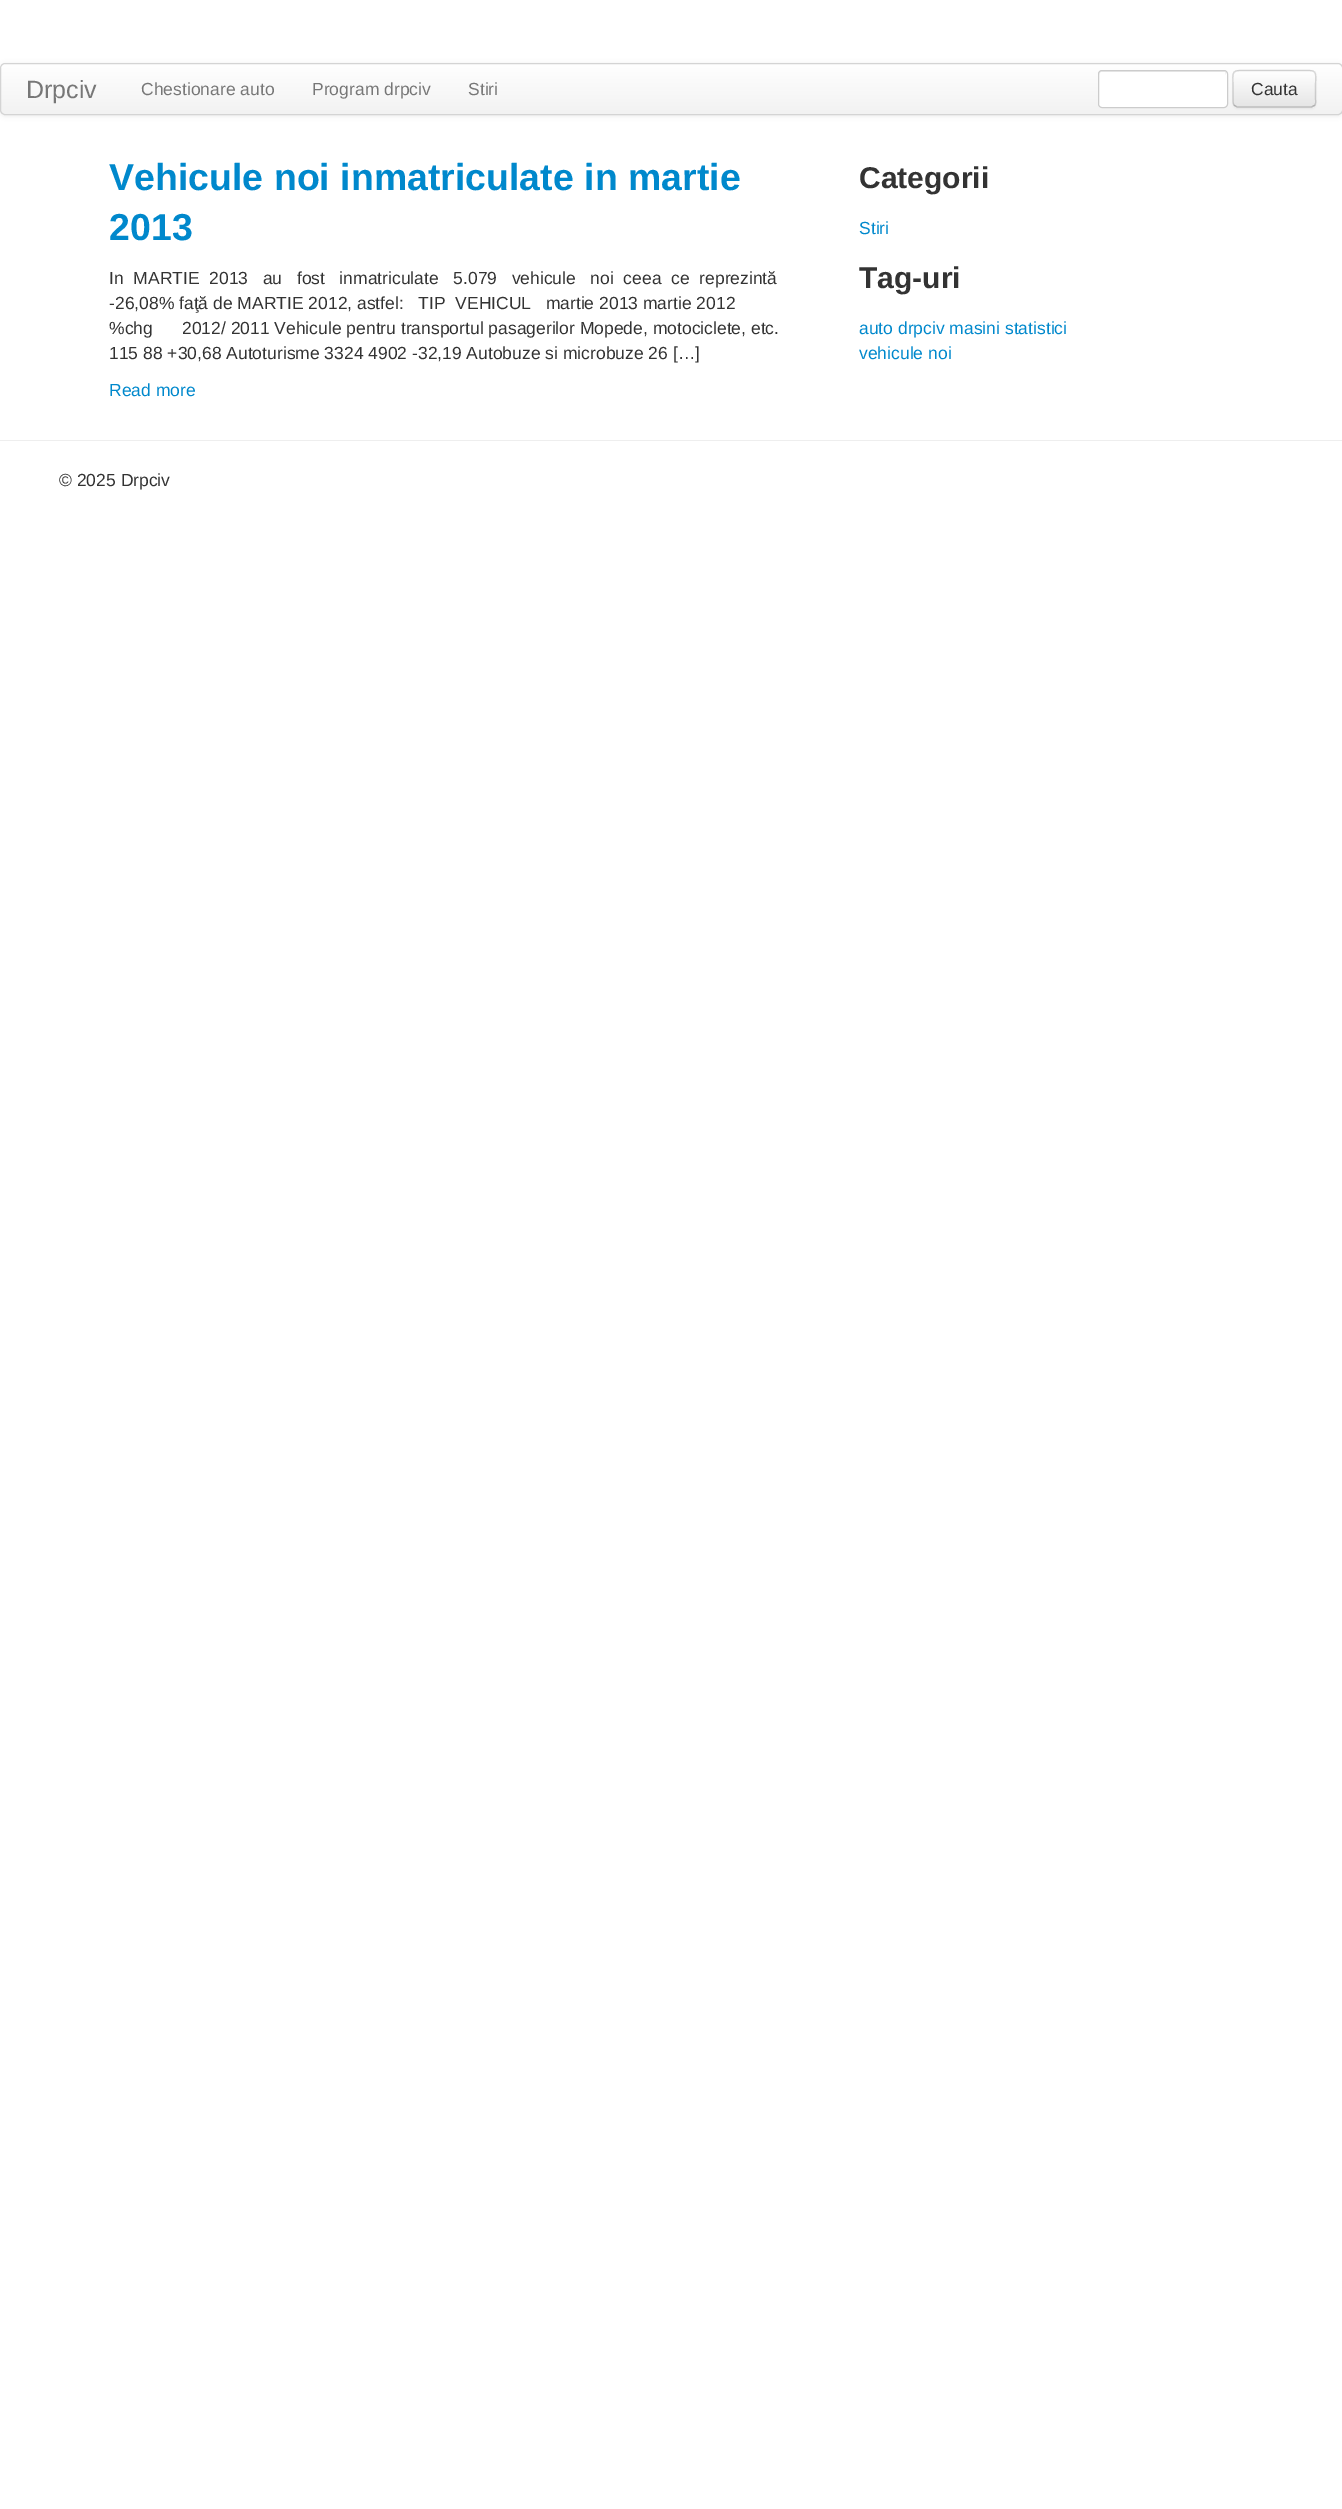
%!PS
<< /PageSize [1342 2509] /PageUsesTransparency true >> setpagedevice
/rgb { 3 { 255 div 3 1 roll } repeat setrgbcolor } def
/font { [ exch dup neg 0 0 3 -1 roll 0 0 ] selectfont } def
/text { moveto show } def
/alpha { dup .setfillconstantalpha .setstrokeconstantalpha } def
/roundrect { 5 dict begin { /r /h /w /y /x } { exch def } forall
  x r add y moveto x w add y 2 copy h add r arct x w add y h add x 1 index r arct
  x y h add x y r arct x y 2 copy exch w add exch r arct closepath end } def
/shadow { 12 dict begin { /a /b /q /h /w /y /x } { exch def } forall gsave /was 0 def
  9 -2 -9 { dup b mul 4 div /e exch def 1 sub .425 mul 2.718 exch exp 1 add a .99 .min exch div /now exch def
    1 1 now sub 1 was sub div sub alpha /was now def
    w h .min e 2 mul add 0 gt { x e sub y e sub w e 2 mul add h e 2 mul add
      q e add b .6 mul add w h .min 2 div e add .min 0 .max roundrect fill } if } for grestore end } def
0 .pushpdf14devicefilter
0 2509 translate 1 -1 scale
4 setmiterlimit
255 255 255 rgb
0 0 1342 2509 rectfill
0 0 0 rgb
0 64 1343 52 5 2.5 0.07 shadow
gsave
0 63 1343 52 5 roundrect clip newpath
gsave 0 64 moveto 1342 0 rlineto 0 50 rlineto -1342 0 rlineto closepath clip newpath
<< /ShadingType 2 /ColorSpace /DeviceRGB /Coords [671 64 671 114] /Extend [true true] /Function << /FunctionType 2 /Domain [0 1] /C0 [1 1 1] /C1 [0.949 0.949 0.949] /N 1 >> >> shfill grestore
grestore
212 212 212 rgb
0.5 63.5 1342 51 4.5 roundrect stroke
255 255 255 rgb
1098 70 130 38 4 roundrect fill
236 236 236 rgb
1101 72 moveto 124 0 rlineto 1 3 rlineto 0 -1 rlineto 0 -2 -1 -3 -2 -3 rcurveto -122 0 rlineto -2 0 -3 1 -3 3 rcurveto 0 1 rlineto 0 -1 1 -3 2 -3 rcurveto closepath fill
204 204 204 rgb
1098.5 70.5 129 37 3.5 roundrect stroke
0 0 0 rgb
1233 71 83 38 5 1 0.05 shadow
245 245 245 rgb
1233 70 83 38 5 roundrect fill
gsave
1233 70 83 38 5 roundrect clip newpath
gsave 1233 71 moveto 83 0 rlineto 0 35 rlineto -83 0 rlineto closepath clip newpath
<< /ShadingType 2 /ColorSpace /DeviceRGB /Coords [1274 71 1274 106] /Extend [true true] /Function << /FunctionType 2 /Domain [0 1] /C0 [1 1 1] /C1 [0.902 0.902 0.902] /N 1 >> >> shfill grestore
grestore
0.25 alpha
0 0 0 rgb
1.2 setlinewidth
1314.5 105.5 moveto -3 1.5 rlineto -74.5 0 rlineto -2.5 -1.5 rlineto stroke
0.15 alpha
1234.5 105.5 moveto -2 -2 -1.5 -5 -1.5 -7.5 rcurveto 0 -9 rlineto 0 -20 -3 -18.5 17 -18.5 rcurveto 49 0 rlineto 20 0 16.5 -1.5 16.5 18.5 rcurveto 0 9 rlineto 0 2.5 1 5.5 -1 7.5 rcurveto stroke
1 alpha
238 238 238 rgb
0 440 1342 1 rectfill
/LiberationSans-Regular 25 font
119 119 119 rgb
(Drpciv) 26 98 text
/LiberationSans-Regular 17.5 font
(Chestionare auto) 141 95 text
(Program drpciv) 312 95 text
(Stiri) 468 95 text
51 51 51 rgb
(Cauta) 1251 95 text
/LiberationSans-Bold 37.5 font
0 136 204 rgb
(Vehicule noi inmatriculate in martie) 109 190 text
(2013) 109 240 text
/LiberationSans-Regular 17.5 font
51 51 51 rgb
(In  MARTIE  2013   au   fost   inmatriculate   5.079   vehicule   noi  ceea  ce  reprezintă) 109 284 text
(-26,08% faţă de MARTIE 2012, astfel:   TIP  VEHICUL   martie 2013 martie 2012) 109 309 text
(%chg      2012/ 2011 Vehicule pentru transportul pasagerilor Mopede, motociclete, etc.) 109 334 text
(115 88 +30,68 Autoturisme 3324 4902 -32,19 Autobuze si microbuze 26 […]) 109 359 text
0 136 204 rgb
(Read more) 109 396 text
/LiberationSans-Bold 30 font
51 51 51 rgb
(Categorii) 859 188 text
/LiberationSans-Regular 17.5 font
0 136 204 rgb
(Stiri) 859 234 text
/LiberationSans-Bold 30 font
51 51 51 rgb
(Tag-uri) 859 288 text
/LiberationSans-Regular 17.5 font
0 136 204 rgb
(auto drpciv masini statistici) 859 334 text
(vehicule noi) 859 359 text
51 51 51 rgb
(© 2025 Drpciv) 59 486 text
.poppdf14devicefilter showpage
